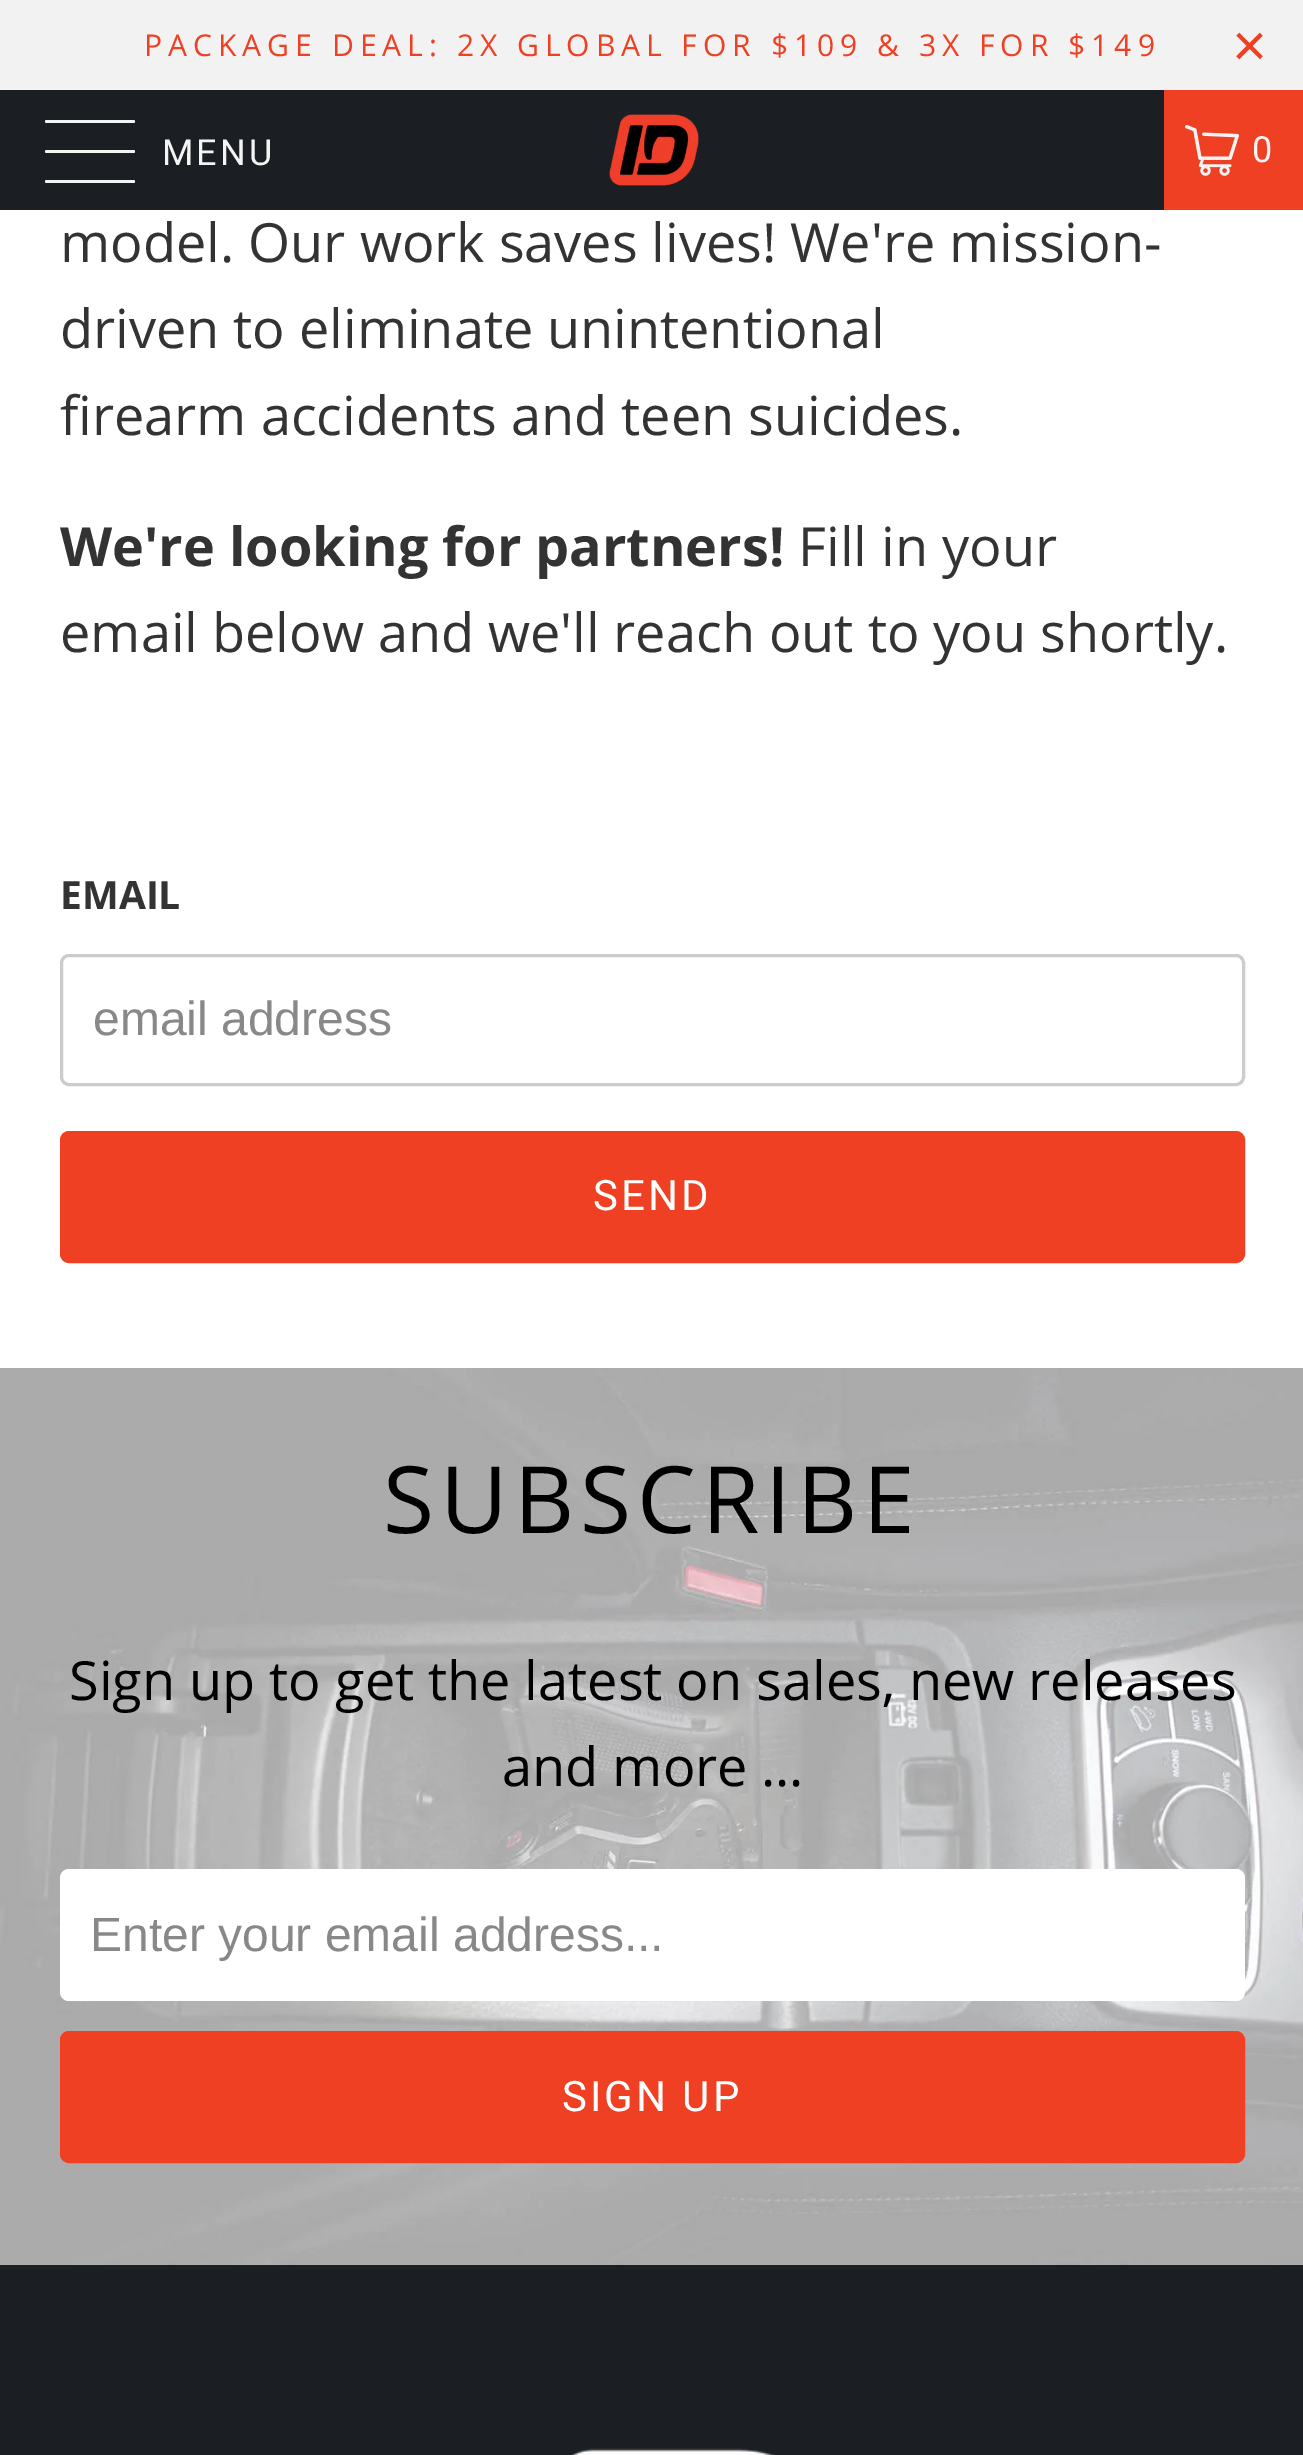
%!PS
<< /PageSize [1303 2455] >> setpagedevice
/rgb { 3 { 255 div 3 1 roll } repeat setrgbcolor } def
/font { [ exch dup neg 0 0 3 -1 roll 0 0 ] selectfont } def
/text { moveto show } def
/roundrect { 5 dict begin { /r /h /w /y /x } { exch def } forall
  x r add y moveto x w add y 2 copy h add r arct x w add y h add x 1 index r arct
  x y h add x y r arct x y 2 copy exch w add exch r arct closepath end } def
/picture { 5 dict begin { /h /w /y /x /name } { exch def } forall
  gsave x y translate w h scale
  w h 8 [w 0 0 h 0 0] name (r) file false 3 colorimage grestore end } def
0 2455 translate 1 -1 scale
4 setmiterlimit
255 255 255 rgb
0 0 1303 2455 rectfill
242 242 242 rgb
0 0 1303 90 rectfill
27 31 35 rgb
0 90 1164 120 rectfill
244 244 244 rgb
45 120 90 3 1.5 roundrect fill
45 150 90 3 1.5 roundrect fill
45 180 90 3 1.5 roundrect fill
(img_01.rgb) 609 114 90 72 picture
239 64 35 rgb
1164 90 139 120 rectfill
(img_02.rgb) 1185 125 54 51 picture
204 204 204 rgb
3 setlinewidth
61.5 955.5 1182 129 7.5 roundrect stroke
239 64 35 rgb
61.5 1132.5 1182 129 7.5 roundrect gsave fill grestore
stroke
(img_03.rgb) 0 1368 1303 897 picture
255 255 255 rgb
60 1869 1185 132 9 roundrect fill
239 64 35 rgb
61.5 2032.5 1182 129 7.5 roundrect gsave fill grestore
stroke
27 31 35 rgb
0 2265 1303 190 rectfill
(img_04.rgb) 571 2448 204 7 picture
/OpenSans-Regular 30 font
239 64 35 rgb
144 56 moveto 6 0 (PACKAGE DEAL: 2X GLOBAL FOR $109 & 3X FOR $149) ashow
/LiberationSans-Regular 60 font
1232 66 moveto 6 0 (×) ashow
/Roboto-Regular 36 font
244 244 244 rgb
162 165 moveto 3 0 (MENU) ashow
1252 162 moveto 3 0 (0) ashow
/OpenSans-Regular 54 font
51 51 51 rgb
(model. Our work saves lives! We're mission-) 60 262 text
(driven to eliminate unintentional) 60 348 text
(firearm accidents and teen suicides.) 60 435 text
/OpenSans-Bold 54 font
(We're looking for partners!) 60 566 text
/OpenSans-Regular 54 font
(Fill in your) 798 566 text
(email below and we'll reach out to you shortly.) 60 652 text
/OpenSans-Bold 39 font
(EMAIL) 60 909 text
/LiberationSans-Regular 48 font
136 136 136 rgb
(email address) 93 1035 text
/Roboto-Regular 42 font
255 255 255 rgb
593 1210 moveto 3 0 (SEND) ashow
/OpenSans-Regular 93 font
0 0 0 rgb
383 1533 moveto 6 0 (SUBSCRIBE) ashow
/OpenSans-Regular 54 font
(Sign up to get the latest on sales, new releases) 69 1700 text
(and more …) 502 1786 text
/LiberationSans-Regular 48 font
136 136 136 rgb
(Enter your email address...) 90 1951 text
/Roboto-Regular 42 font
255 255 255 rgb
562 2111 moveto 3 0 (SIGN UP) ashow
showpage
